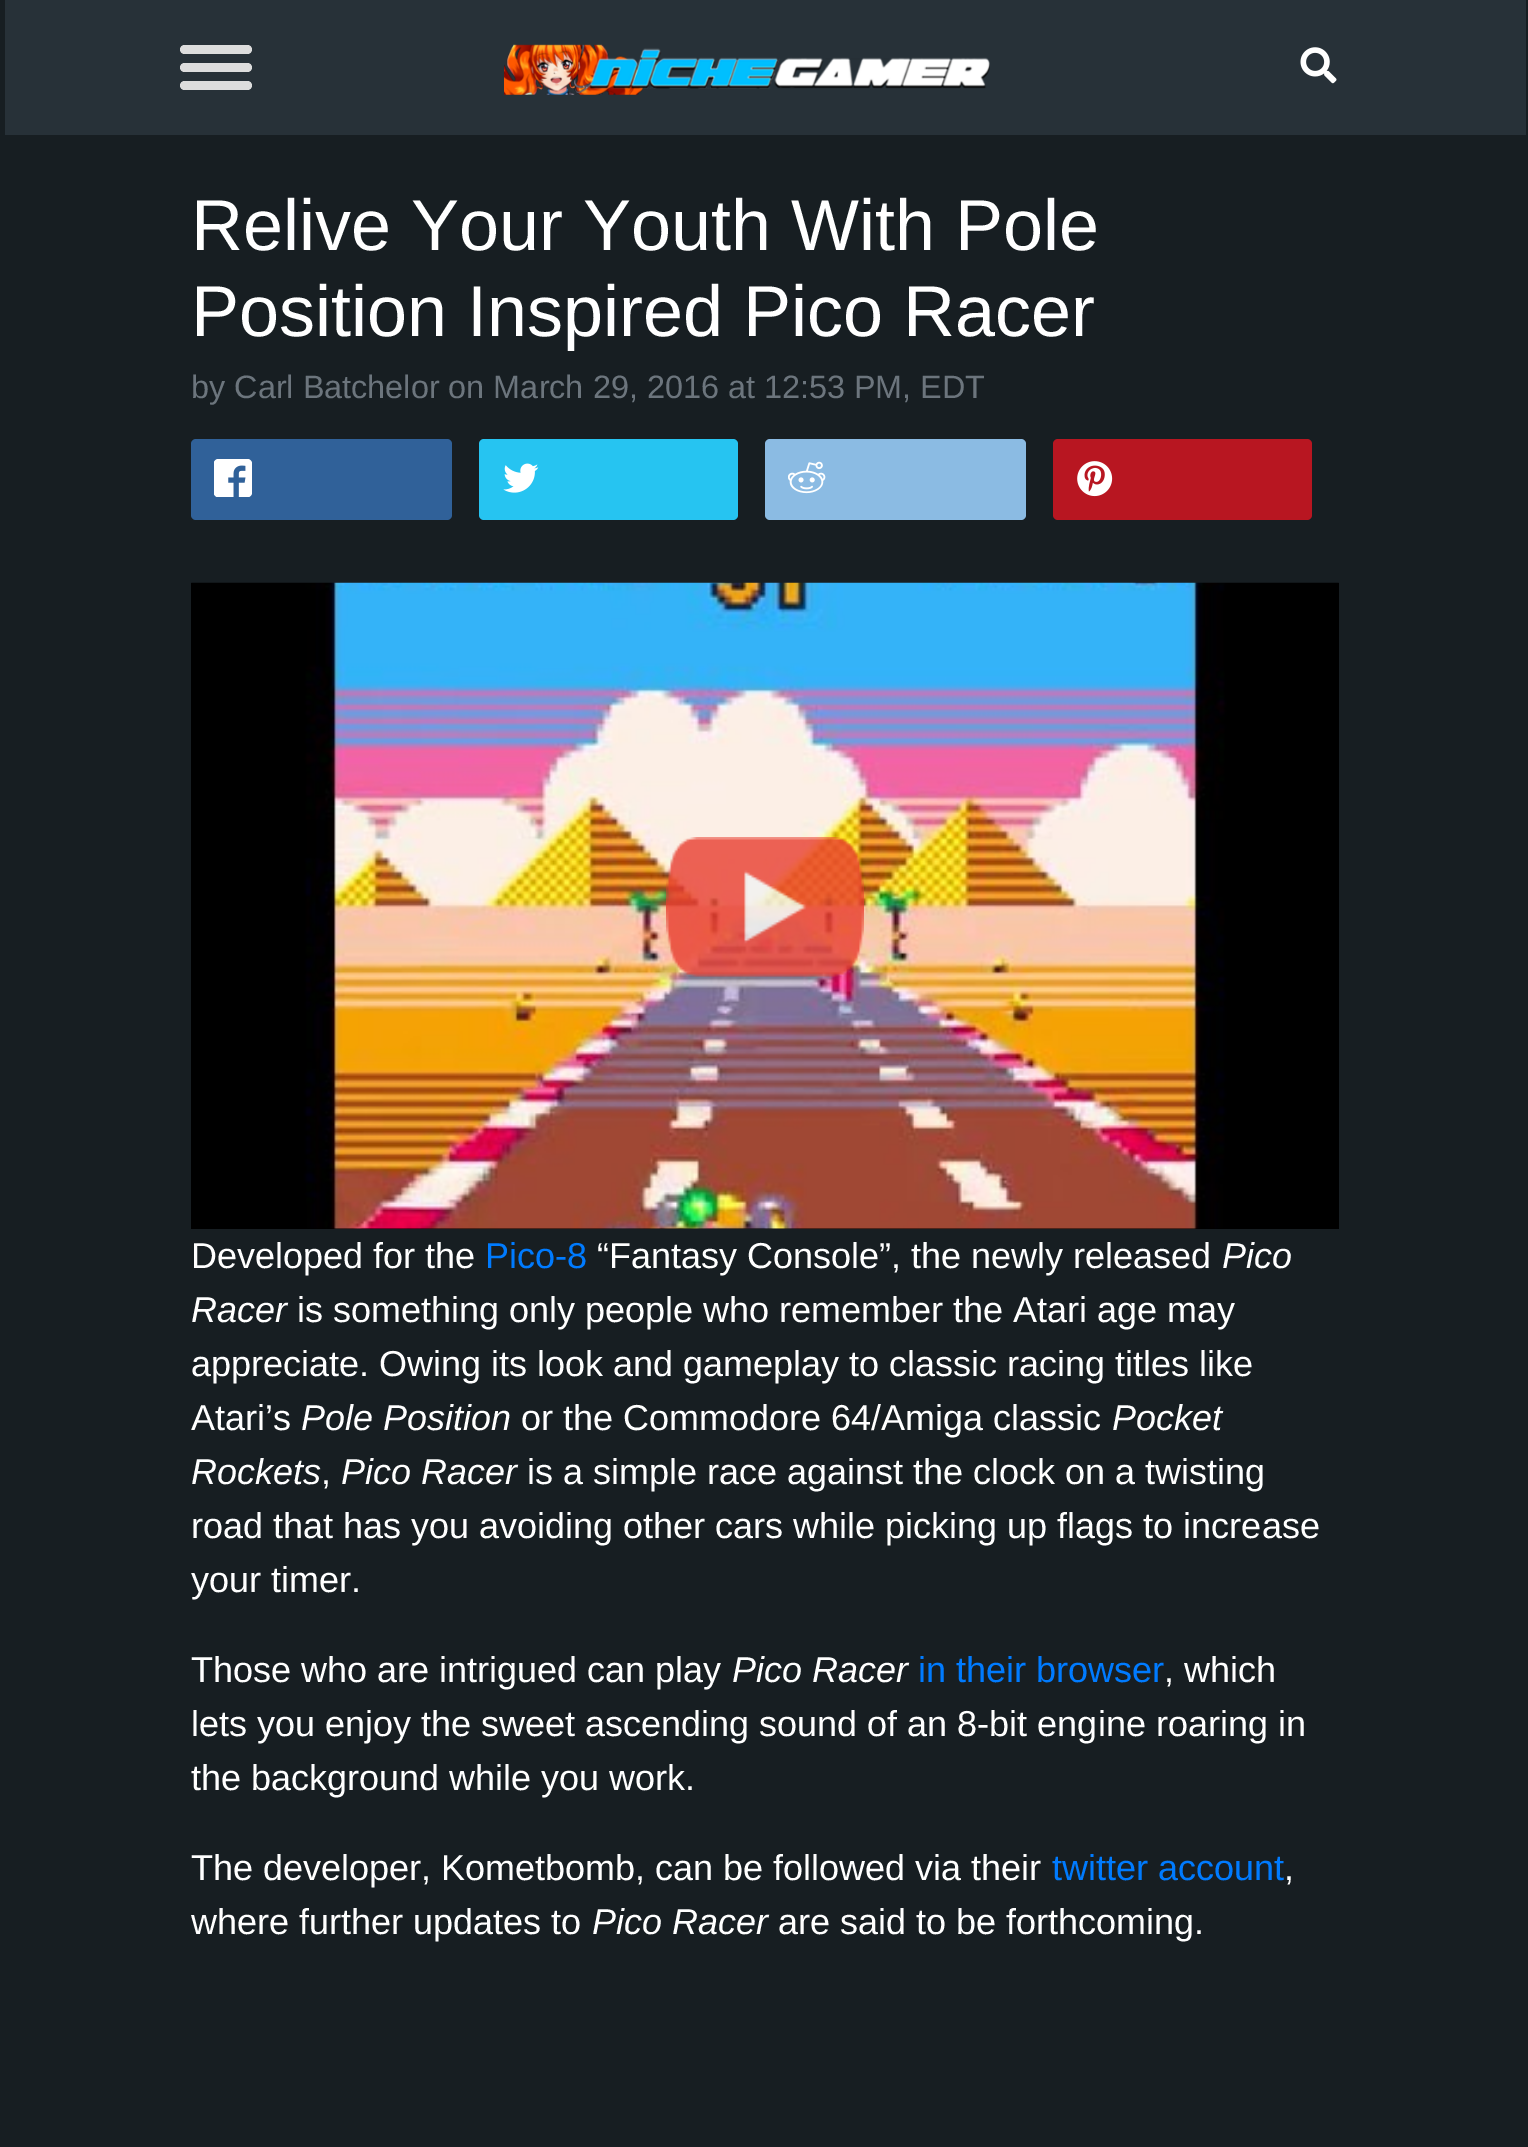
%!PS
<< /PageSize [1528 2147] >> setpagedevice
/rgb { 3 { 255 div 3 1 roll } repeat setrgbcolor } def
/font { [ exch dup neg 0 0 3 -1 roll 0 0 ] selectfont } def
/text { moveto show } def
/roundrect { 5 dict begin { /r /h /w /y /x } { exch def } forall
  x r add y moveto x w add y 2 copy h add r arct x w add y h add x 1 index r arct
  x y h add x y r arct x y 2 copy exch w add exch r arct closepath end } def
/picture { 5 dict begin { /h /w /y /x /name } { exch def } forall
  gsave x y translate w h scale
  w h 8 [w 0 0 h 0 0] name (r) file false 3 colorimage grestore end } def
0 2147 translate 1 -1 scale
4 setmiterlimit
23 30 34 rgb
0 0 1528 2147 rectfill
39 49 56 rgb
5 0 1521 135 rectfill
221 221 221 rgb
180 45 72 9 4.5 roundrect fill
180 63 72 9 4.5 roundrect fill
180 81 72 9 4.5 roundrect fill
(img_01.rgb) 504 44 486 51 picture
(img_02.rgb) 1300 47 37 37 picture
48 97 153 rgb
191 439 261 81 5 roundrect fill
(img_03.rgb) 214 459 38 38 picture
38 196 241 rgb
479 439 259 81 5 roundrect fill
(img_04.rgb) 503 463 36 30 picture
139 187 227 rgb
765 439 261 81 5 roundrect fill
(img_05.rgb) 788 461 38 33 picture
184 22 33 rgb
1053 439 259 81 5 roundrect fill
(img_06.rgb) 1077 461 36 36 picture
0 0 0 rgb
191 583 1148 646 rectfill
(img_07.rgb) 191 582 1148 647 picture
(img_08.rgb) 666 837 198 140 picture
/LiberationSans-Regular 72 font
255 255 255 rgb
(Relive Your Youth With Pole) 191 250 text
(Position Inspired Pico Racer) 191 336 text
/LiberationSans-Regular 32.4 font
108 117 125 rgb
(by Carl Batchelor on March 29, 2016 at 12:53 PM, EDT) 191 398 text
/LiberationSans-Regular 36 font
255 255 255 rgb
(Developed for the) 191 1268 text
0 123 255 rgb
(Pico-8) 485 1268 text
255 255 255 rgb
(“Fantasy Console”, the newly released) 597 1268 text
/LiberationSans-Italic 36 font
(Pico) 1222 1268 text
(Racer) 191 1322 text
/LiberationSans-Regular 36 font
(is something only people who remember the Atari age may) 297 1322 text
(appreciate. Owing its look and gameplay to classic racing titles like) 191 1376 text
(Atari’s) 191 1430 text
/LiberationSans-Italic 36 font
(Pole Position) 301 1430 text
/LiberationSans-Regular 36 font
(or the Commodore 64/Amiga classic) 521 1430 text
/LiberationSans-Italic 36 font
(Pocket) 1112 1430 text
(Rockets) 191 1484 text
/LiberationSans-Regular 36 font
(,) 321 1484 text
/LiberationSans-Italic 36 font
(Pico Racer) 341 1484 text
/LiberationSans-Regular 36 font
(is a simple race against the clock on a twisting) 527 1484 text
(road that has you avoiding other cars while picking up flags to increase) 191 1538 text
(your timer.) 191 1592 text
(Those who are intrigued can play) 191 1682 text
/LiberationSans-Italic 36 font
(Pico Racer) 732 1682 text
/LiberationSans-Regular 36 font
0 123 255 rgb
(in their browser) 918 1682 text
255 255 255 rgb
(, which) 1164 1682 text
(lets you enjoy the sweet ascending sound of an 8-bit engine roaring in) 191 1736 text
(the background while you work.) 191 1790 text
(The developer, Kometbomb, can be followed via their) 191 1880 text
0 123 255 rgb
(twitter account) 1052 1880 text
255 255 255 rgb
(,) 1284 1880 text
(where further updates to) 191 1934 text
/LiberationSans-Italic 36 font
(Pico Racer) 592 1934 text
/LiberationSans-Regular 36 font
(are said to be forthcoming.) 778 1934 text
showpage
